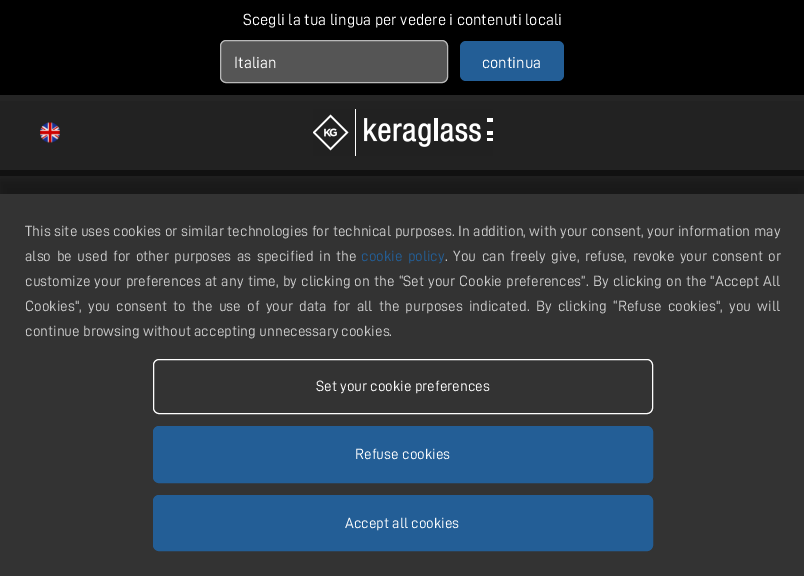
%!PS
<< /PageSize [804 576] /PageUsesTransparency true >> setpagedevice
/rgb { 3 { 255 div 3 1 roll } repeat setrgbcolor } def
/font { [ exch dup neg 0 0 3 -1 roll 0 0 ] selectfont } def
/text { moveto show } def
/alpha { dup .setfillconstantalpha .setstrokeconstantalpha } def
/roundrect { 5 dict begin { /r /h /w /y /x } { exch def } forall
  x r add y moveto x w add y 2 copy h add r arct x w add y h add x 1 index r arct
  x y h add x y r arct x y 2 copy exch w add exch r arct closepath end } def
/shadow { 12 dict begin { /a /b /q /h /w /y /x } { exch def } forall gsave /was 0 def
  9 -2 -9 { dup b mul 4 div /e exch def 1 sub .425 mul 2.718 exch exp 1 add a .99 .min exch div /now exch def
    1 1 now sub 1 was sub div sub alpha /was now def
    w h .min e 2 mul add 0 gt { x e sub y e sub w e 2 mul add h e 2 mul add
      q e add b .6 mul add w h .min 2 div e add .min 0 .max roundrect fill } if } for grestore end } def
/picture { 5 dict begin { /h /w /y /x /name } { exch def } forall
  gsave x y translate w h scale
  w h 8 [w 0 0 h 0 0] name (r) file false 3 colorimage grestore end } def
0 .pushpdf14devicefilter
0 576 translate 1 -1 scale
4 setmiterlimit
34 34 34 rgb
0 0 804 576 rectfill
0 0 0 rgb
0 0 804 95 rectfill
85 85 85 rgb
220.5 40.5 227 42 5.5 roundrect gsave fill grestore
185 185 185 rgb
stroke
35 94 150 rgb
460 41 104 40 6 roundrect fill
(img_01.rgb) 40 122 20 21 picture
(img_02.rgb) 313 109 180 47 picture
17 17 17 rgb
0 170 804 6 rectfill
37 37 37 rgb
0 95 804 6 rectfill
0 0 0 rgb
-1 180 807 385 0 6 0.3 shadow
51 51 51 rgb
0 194 804 382 rectfill
255 255 255 rgb
153.5 359.5 499 54 5.5 roundrect stroke
35 94 150 rgb
153.5 426.5 499 56 5.5 roundrect gsave fill grestore
stroke
153.5 495.5 499 55 5.5 roundrect gsave fill grestore
stroke
/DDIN-Regular 16.25 font
255 255 255 rgb
(Scegli la tua lingua per vedere i contenuti locali) 243 25 text
(Italian) 234 68 text
(continua) 482 68 text
/DDIN-Regular 15 font
204 204 204 rgb
25 236 moveto 0.25 0 32 (This site uses cookies or similar technologies for technical purposes. In addition, with your consent, your information may) widthshow
25 261 moveto 2.25 0 32 (also be used for other purposes as specified in the) widthshow
35 94 150 rgb
361 261 moveto 2.25 0 32 (cookie policy) widthshow
204 204 204 rgb
445 261 moveto 2.25 0 32 (. You can freely give, refuse, revoke your consent or) widthshow
25 286 moveto 0.9 0 32 (customize your preferences at any time, by clicking on the “Set your Cookie preferences”. By clicking on the "Accept All) widthshow
25 311 moveto 3 0 32 (Cookies", you consent to the use of your data for all the purposes indicated. By clicking “Refuse cookies", you will) widthshow
(continue browsing without accepting unnecessary cookies.) 25 336 text
255 255 255 rgb
(Set your cookie preferences) 316 391 text
(Refuse cookies) 355 459 text
(Accept all cookies) 345 528 text
.poppdf14devicefilter showpage
